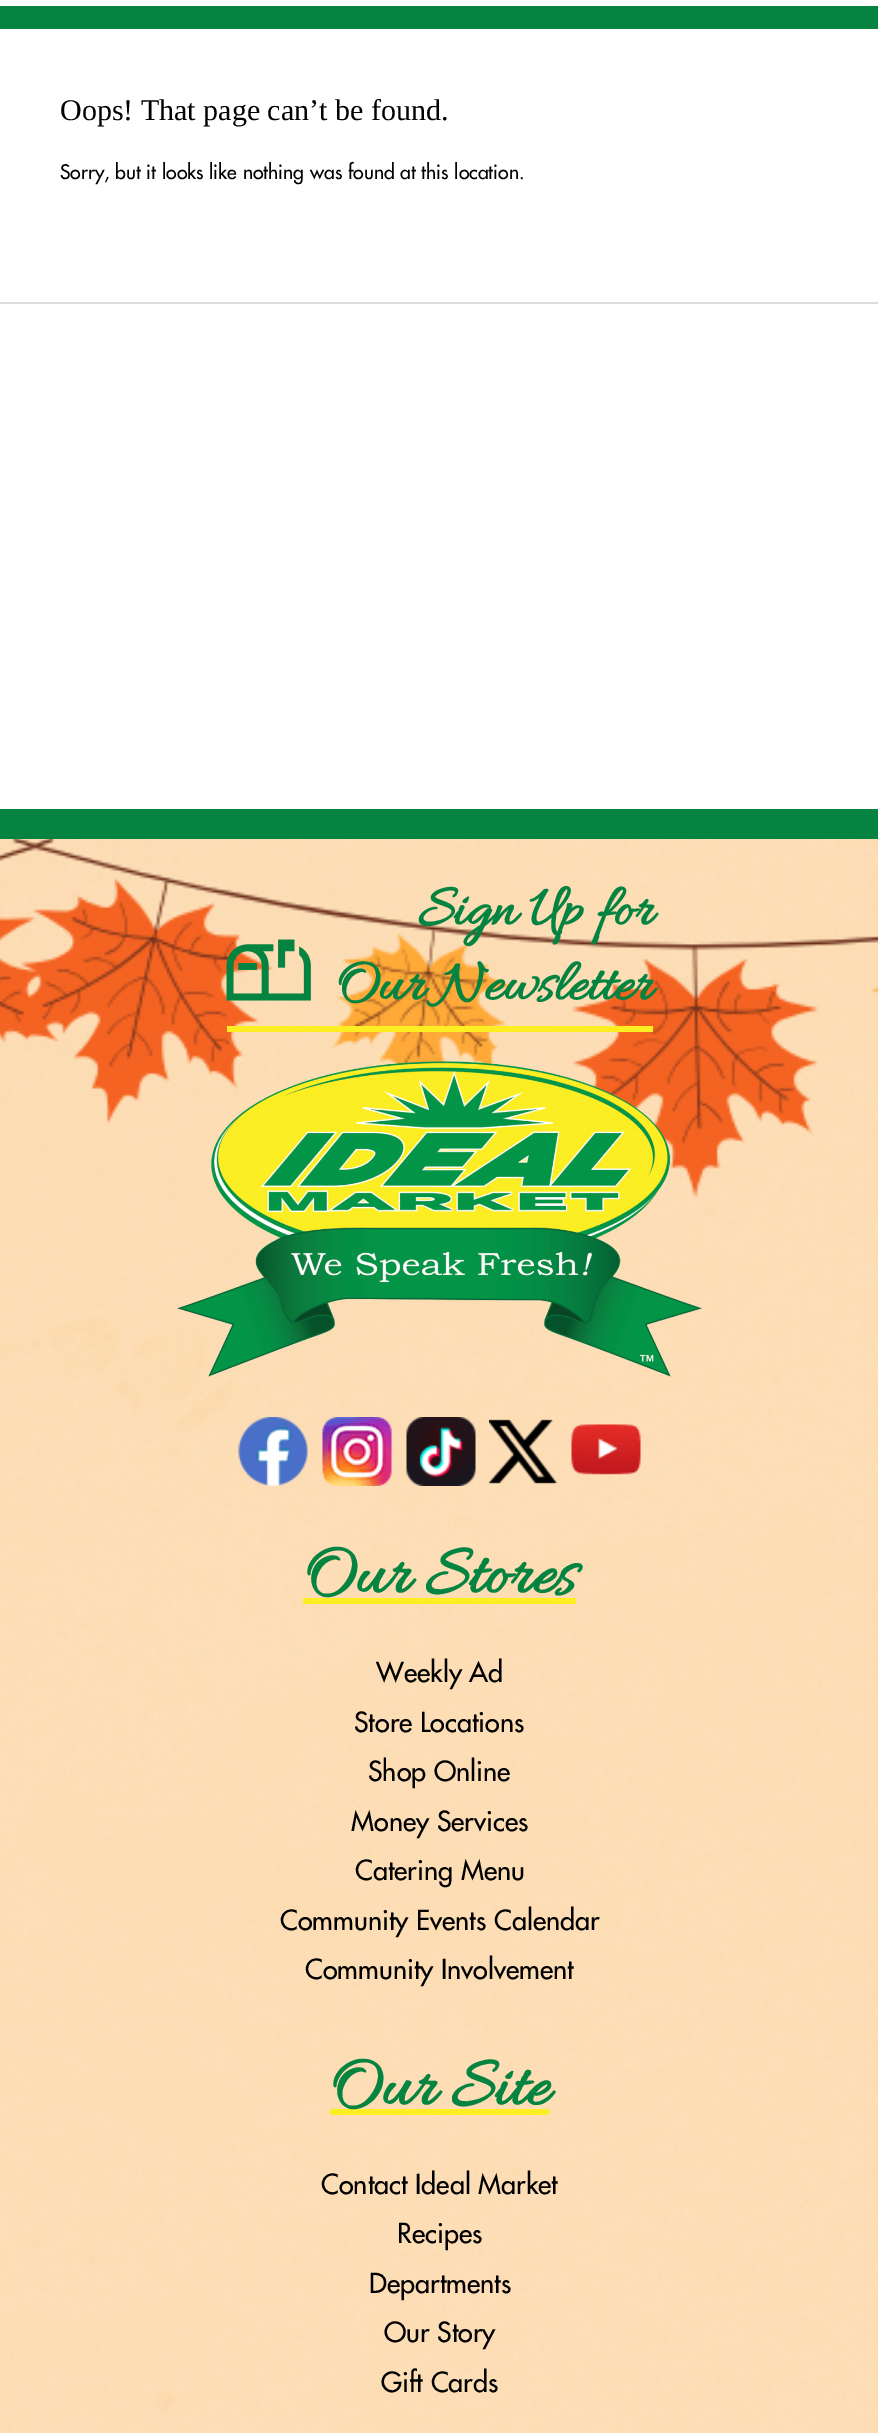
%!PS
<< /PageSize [878 2433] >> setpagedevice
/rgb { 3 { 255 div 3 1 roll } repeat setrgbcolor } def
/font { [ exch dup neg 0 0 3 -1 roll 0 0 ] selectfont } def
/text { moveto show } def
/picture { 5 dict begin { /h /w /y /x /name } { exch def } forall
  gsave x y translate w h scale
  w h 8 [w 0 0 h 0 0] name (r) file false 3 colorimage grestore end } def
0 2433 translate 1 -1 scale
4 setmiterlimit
255 255 255 rgb
0 0 878 2433 rectfill
5 132 65 rgb
0 6 878 23 rectfill
221 221 221 rgb
0 302 878 2 rectfill
(img_01.rgb) 0 839 878 1594 picture
5 132 65 rgb
0 809 878 30 rectfill
252 238 35 rgb
227 1026 426 6 rectfill
(img_02.rgb) 226 939 85 62 picture
(img_03.rgb) 177 1061 525 316 picture
(img_04.rgb) 238 1417 70 69 picture
(img_05.rgb) 322 1417 70 69 picture
(img_06.rgb) 406 1417 70 69 picture
(img_07.rgb) 489 1419 68 65 picture
(img_08.rgb) 571 1424 70 51 picture
303 1598 273 6 rectfill
330 2109 219 6 rectfill
/LiberationSerif-Regular 30 font
0 0 0 rgb
(Oops! That page can’t be found.) 60 120 text
/Futura-Medium 19.5 font
(Sorry, but it looks like nothing was found at this location.) 60 179 text
/Allura-Bold 60 font
5 132 65 rgb
(Sign Up for) 418 924 text
(Our Newsletter) 336 999 text
/Allura-Bold 72 font
(Our Stores) 304 1592 text
/Futura-Medium 27 font
0 0 0 rgb
(Weekly Ad) 376 1682 text
(Store Locations) 354 1732 text
(Shop Online) 368 1781 text
(Money Services) 351 1831 text
(Catering Menu) 355 1880 text
(Community Events Calendar) 280 1930 text
(Community Involvement) 305 1979 text
/Allura-Bold 72 font
5 132 65 rgb
(Our Site) 330 2104 text
/Futura-Medium 27 font
0 0 0 rgb
(Contact Ideal Market) 321 2194 text
(Recipes) 397 2243 text
(Departments) 369 2293 text
(Our Story) 384 2342 text
(Gift Cards) 381 2392 text
showpage
